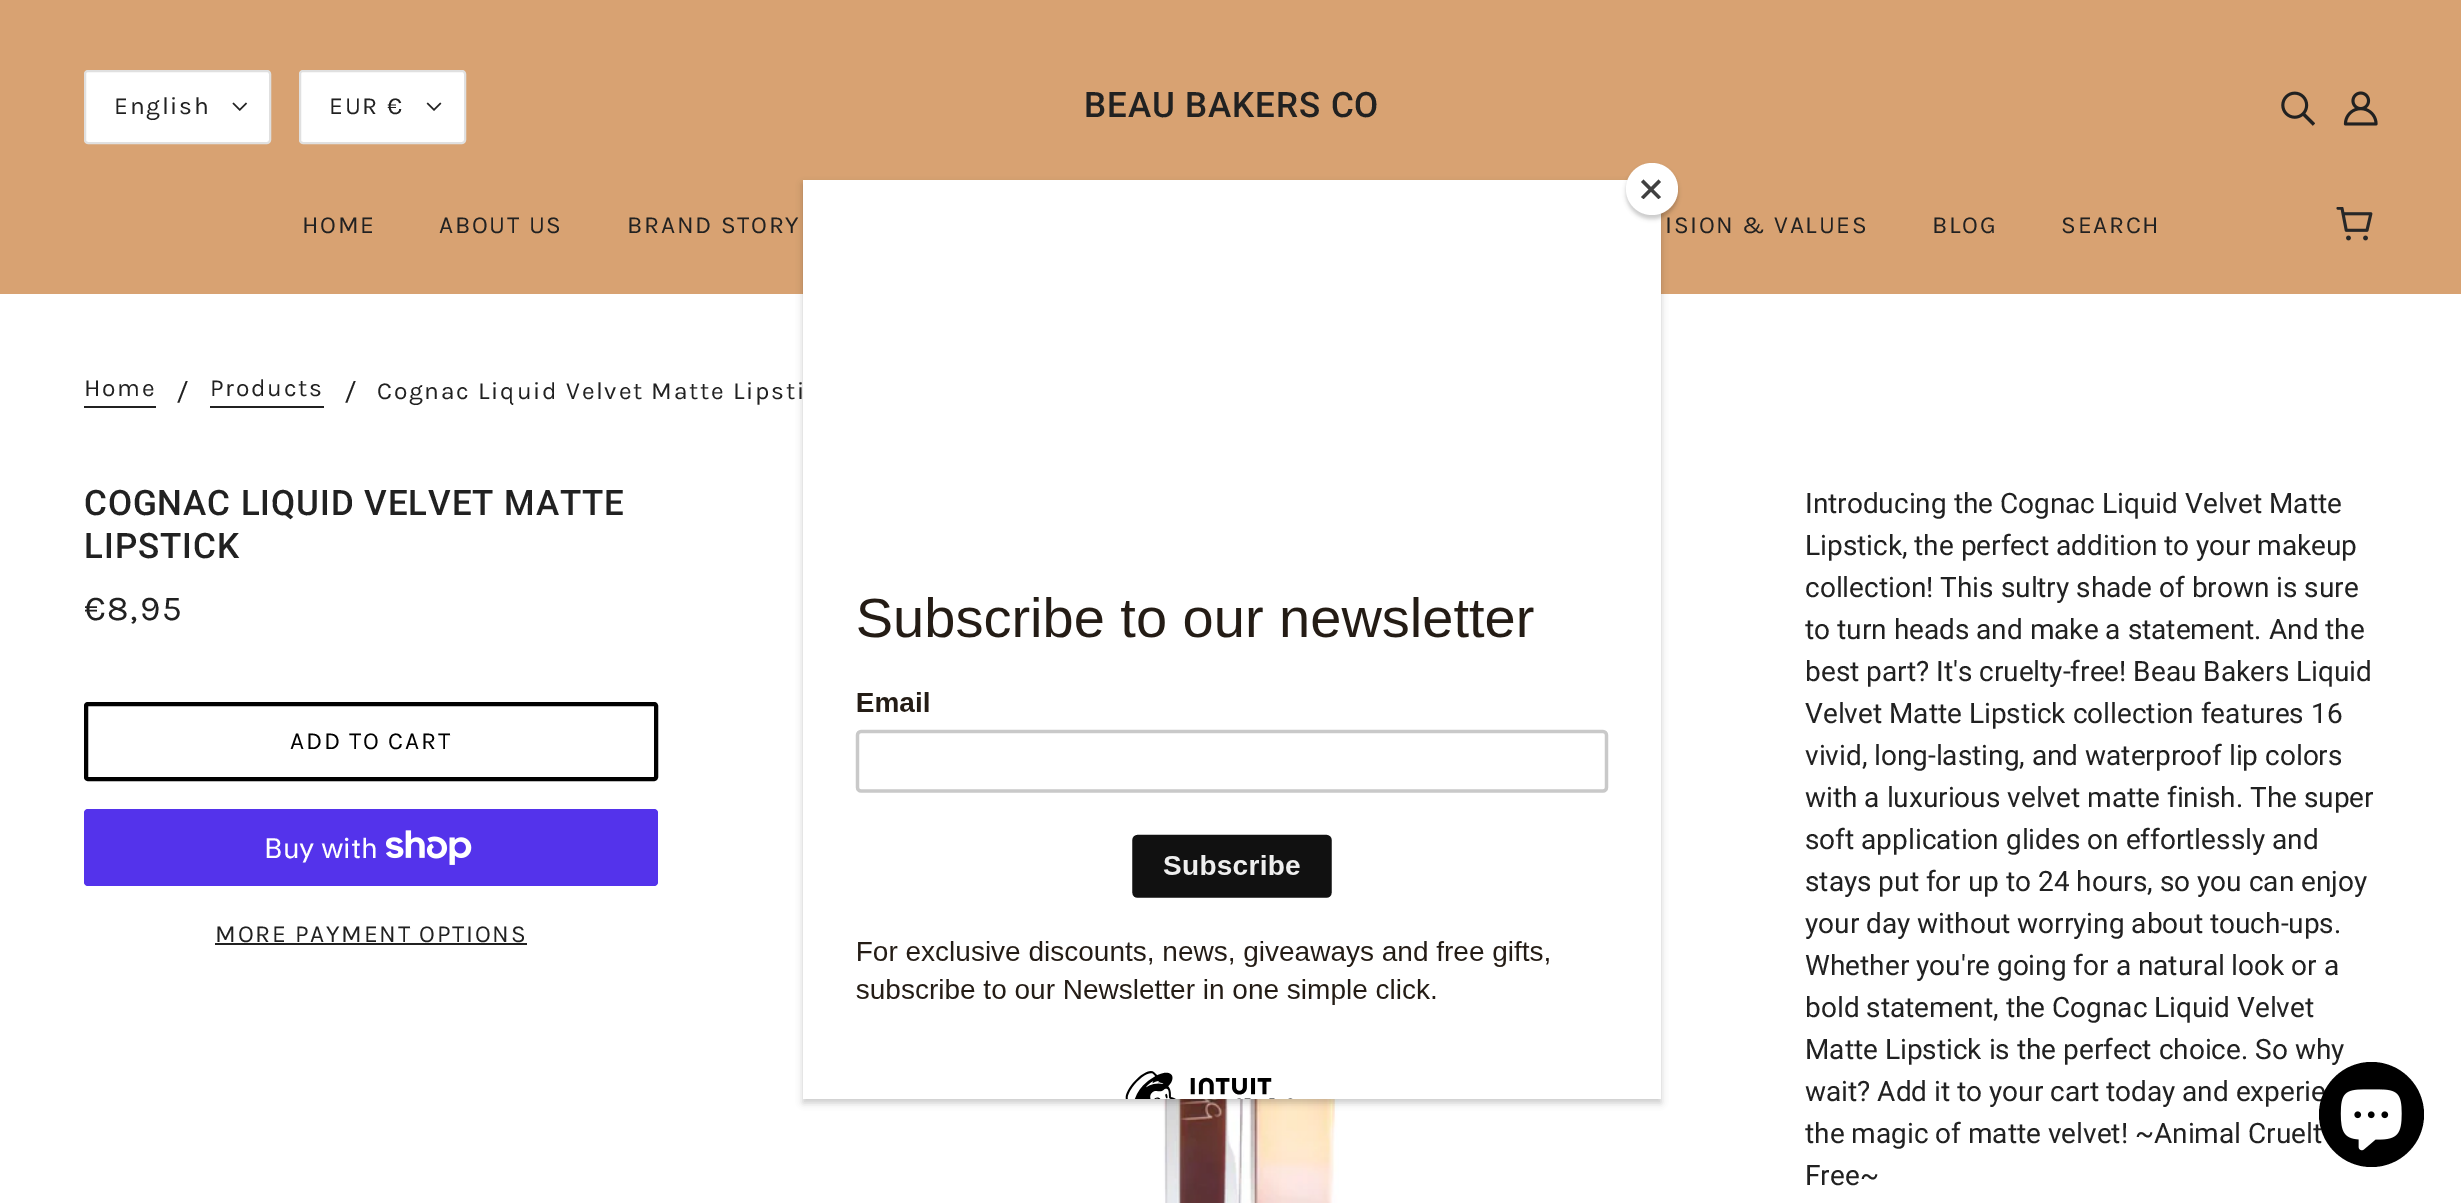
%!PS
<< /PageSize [2461 1203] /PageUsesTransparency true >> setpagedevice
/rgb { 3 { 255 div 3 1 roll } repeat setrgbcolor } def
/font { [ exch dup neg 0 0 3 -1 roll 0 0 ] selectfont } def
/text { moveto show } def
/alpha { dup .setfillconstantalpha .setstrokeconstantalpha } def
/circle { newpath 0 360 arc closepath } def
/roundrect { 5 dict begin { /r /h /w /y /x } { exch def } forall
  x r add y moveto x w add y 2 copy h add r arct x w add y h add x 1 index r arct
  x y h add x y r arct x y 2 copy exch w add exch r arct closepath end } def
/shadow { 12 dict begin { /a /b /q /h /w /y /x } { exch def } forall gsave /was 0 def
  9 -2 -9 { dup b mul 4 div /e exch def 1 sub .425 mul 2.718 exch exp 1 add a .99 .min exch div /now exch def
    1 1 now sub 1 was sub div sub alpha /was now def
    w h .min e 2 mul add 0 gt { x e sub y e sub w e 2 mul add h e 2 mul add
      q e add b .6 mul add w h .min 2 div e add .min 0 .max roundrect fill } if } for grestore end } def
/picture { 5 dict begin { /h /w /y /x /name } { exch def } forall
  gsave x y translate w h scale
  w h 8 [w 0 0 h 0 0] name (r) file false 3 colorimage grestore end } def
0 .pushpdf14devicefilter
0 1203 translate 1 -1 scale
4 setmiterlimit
255 255 255 rgb
0 0 2461 1203 rectfill
216 162 114 rgb
0 0 2461 294 rectfill
255 255 255 rgb
85 71 185 72 3 roundrect gsave fill grestore
224 224 224 rgb
2 setlinewidth
stroke
(img_01.rgb) 232 102 16 9 picture
255 255 255 rgb
300 71 165 72 3 roundrect gsave fill grestore
224 224 224 rgb
stroke
(img_02.rgb) 426 102 16 9 picture
(img_03.rgb) 2281 91 34 35 picture
(img_04.rgb) 2343 91 35 35 picture
(img_05.rgb) 2336 207 37 34 picture
33 33 33 rgb
84 406 72 2 rectfill
210 406 114 2 rectfill
0 0 0 rgb
4 setlinewidth
86 704 570 75 2 roundrect stroke
84 51 235 rgb
84 809 574 77 4 roundrect fill
(img_06.rgb) 386 830 86 35 picture
33 33 33 rgb
215 943 312 2 rectfill
(img_07.rgb) 1160 1099 179 104 picture
0 0 0 rgb
803 184 858 919 0 3.5 0.2 shadow
(img_08.rgb) 803 180 858 919 picture
1626 166 52 53 26 2 0.2 shadow
255 255 255 rgb
1652 189 26 circle fill
65 65 65 rgb
1658.5 179.5 moveto 2.5 2.5 rlineto -17.5 17 rlineto -2.5 -2 rlineto closepath fill
1641 182 moveto 2.5 -2.5 rlineto 17.5 17.5 rlineto -2.5 2 rlineto closepath fill
/Karla-Regular 24.5 font
33 33 33 rgb
114 114 moveto 1.75 0 (English) ashow
329 114 moveto 1.75 0 (EUR €) ashow
/Roboto-Medium 35 font
1084 117 moveto 0.9 0 (BEAU BAKERS CO) ashow
/Karla-Regular 24.5 font
302 233 moveto 1.75 0 (HOME) ashow
439 233 moveto 1.75 0 (ABOUT US) ashow
627 233 moveto 1.75 0 (BRAND STORY) ashow
1665 233 moveto 1.75 0 (ISION & VALUES) ashow
1932 233 moveto 1.75 0 (BLOG) ashow
2061 233 moveto 1.75 0 (SEARCH) ashow
84 396 moveto 1.75 0 (Home) ashow
/Roboto-Regular 28 font
(/) 177 401 text
/Karla-Regular 24.5 font
210 396 moveto 1.75 0 (Products) ashow
/Roboto-Regular 28 font
(/) 345 401 text
/Karla-Regular 24.5 font
377 399 moveto 1.75 0 (Cognac Liquid Velvet Matte Lipsti) ashow
/Roboto-Medium 35 font
84 515 moveto 0.9 0 (COGNAC LIQUID VELVET MATTE) ashow
84 558 moveto 0.9 0 (LIPSTICK) ashow
/Roboto-Regular 28 font
(Introducing the Cognac Liquid Velvet Matte) 1805 513 text
(Lipstick, the perfect addition to your makeup) 1805 555 text
(collection! This sultry shade of brown is sure) 1805 597 text
(to turn heads and make a statement. And the) 1805 639 text
(best part? It's cruelty-free! Beau Bakers Liquid) 1805 681 text
(Velvet Matte Lipstick collection features 16) 1805 723 text
(vivid, long-lasting, and waterproof lip colors) 1805 765 text
(with a luxurious velvet matte finish. The super) 1805 807 text
(soft application glides on effortlessly and) 1805 849 text
(stays put for up to 24 hours, so you can enjoy) 1805 891 text
(your day without worrying about touch-ups.) 1805 933 text
(Whether you're going for a natural look or a) 1805 975 text
(bold statement, the Cognac Liquid Velvet) 1805 1017 text
(Matte Lipstick is the perfect choice. So why) 1805 1059 text
(wait? Add it to your cart today and experie) 1805 1101 text
(the magic of matte velvet! ~Animal Cruelt) 1805 1143 text
(Free~) 1805 1185 text
/Karla-Regular 35 font
84 620 moveto 1.75 0 (€8,95) ashow
/Karla-Regular 24.5 font
0 0 0 rgb
290 749 moveto 1.75 0 (ADD TO CART) ashow
/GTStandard-Regular 28 font
255 255 255 rgb
(Buy with) 264 858 text
/Karla-Regular 24.5 font
33 33 33 rgb
215 942 moveto 1.75 0 (MORE PAYMENT OPTIONS) ashow
0 0 0 rgb
2371.5 1114.5 52.5 circle fill
(img_09.rgb) 2340 1089 62 62 picture
.poppdf14devicefilter showpage
